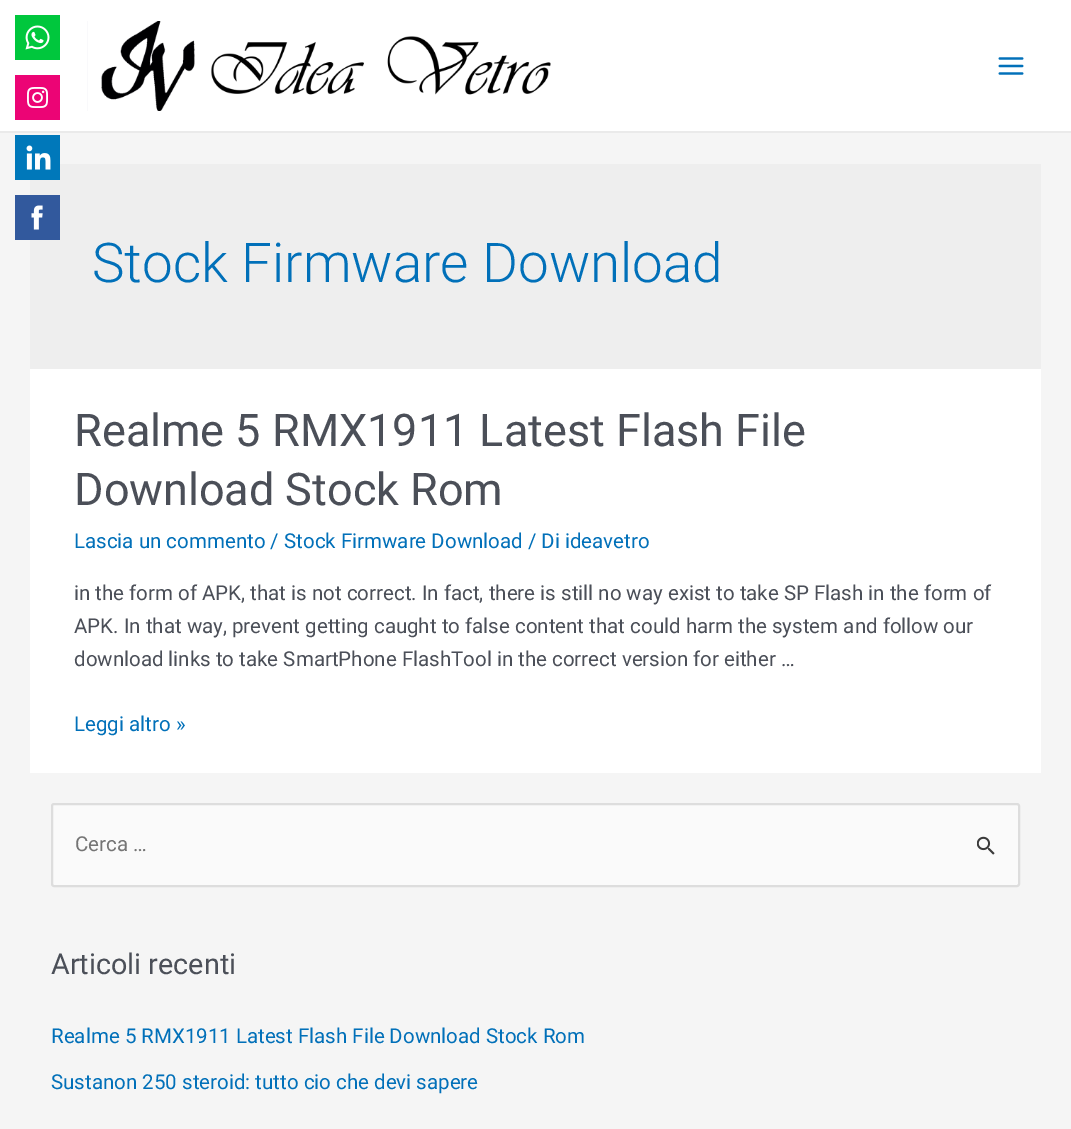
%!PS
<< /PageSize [1071 1129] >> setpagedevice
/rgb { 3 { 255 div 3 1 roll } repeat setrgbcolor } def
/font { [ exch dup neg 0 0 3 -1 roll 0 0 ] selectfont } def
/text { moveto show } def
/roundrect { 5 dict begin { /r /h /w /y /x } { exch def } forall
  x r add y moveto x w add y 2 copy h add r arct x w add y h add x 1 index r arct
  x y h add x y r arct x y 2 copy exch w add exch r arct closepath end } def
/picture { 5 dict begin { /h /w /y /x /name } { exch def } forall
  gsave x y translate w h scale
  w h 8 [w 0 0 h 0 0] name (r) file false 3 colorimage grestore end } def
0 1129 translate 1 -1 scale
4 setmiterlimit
245 245 245 rgb
0 0 1071 1129 rectfill
255 255 255 rgb
0 0 1071 131 rectfill
0 199 61 rgb
15 15 45 45 rectfill
(img_01.rgb) 25 25 25 25 picture
236 4 117 rgb
15 75 45 45 rectfill
(img_02.rgb) 27 87 21 21 picture
238 238 238 rgb
30 164 1011 205 rectfill
0 120 186 rgb
15 135 45 45 rectfill
(img_03.rgb) 26 145 25 25 picture
50 89 157 rgb
15 195 45 45 rectfill
(img_04.rgb) 31 205 12 25 picture
234 234 234 rgb
0 131 1071 2 rectfill
(img_05.rgb) 87 21 464 90 picture
(img_06.rgb) 998 57 26 18 picture
255 255 255 rgb
30 369 1011 404 rectfill
250 250 250 rgb
52 804 967 82 2 roundrect gsave fill grestore
221 221 221 rgb
2 setlinewidth
stroke
(img_07.rgb) 977 836 18 19 picture
/Roboto-Light 54.75 font
1 112 185 rgb
(Stock Firmware Download) 92 282 text
/Roboto-Regular 45 font
75 79 88 rgb
(Realme 5 RMX1911 Latest Flash File) 74 446 text
(Download Stock Rom) 74 505 text
/Roboto-Regular 20.5 font
1 112 185 rgb
(Lascia un commento / Stock Firmware Download / Di ideavetro) 74 548 text
75 79 88 rgb
(in the form of APK, that is not correct. In fact, there is still no way exist to take SP Flash in the form of) 74 600 text
(APK. In that way, prevent getting caught to false content that could harm the system and follow our) 74 633 text
(download links to take SmartPhone FlashTool in the correct version for either …) 74 666 text
1 112 185 rgb
(Leggi altro ») 74 731 text
117 117 117 rgb
(Cerca …) 75 851 text
/Roboto-Regular 28.75 font
75 79 88 rgb
(Articoli recenti) 51 974 text
/Roboto-Regular 20.5 font
1 112 185 rgb
(Realme 5 RMX1911 Latest Flash File Download Stock Rom) 51 1043 text
(Sustanon 250 steroid: tutto cio che devi sapere) 51 1089 text
showpage
